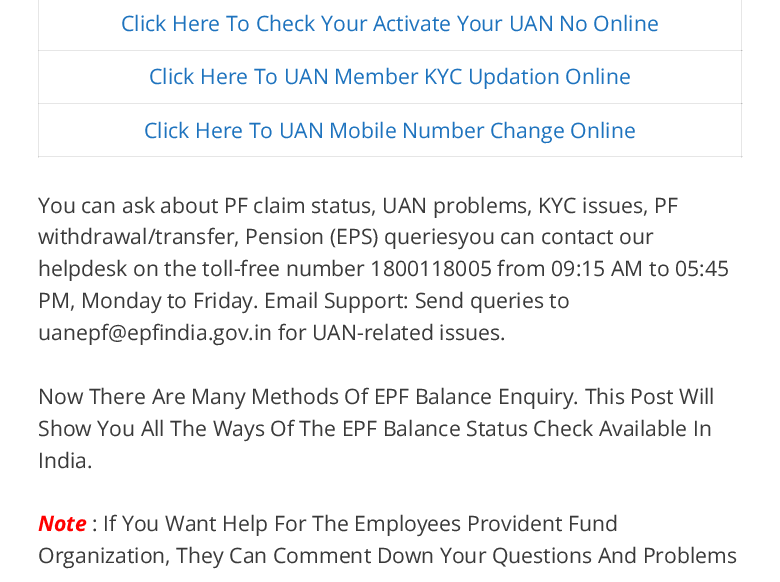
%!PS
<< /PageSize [780 582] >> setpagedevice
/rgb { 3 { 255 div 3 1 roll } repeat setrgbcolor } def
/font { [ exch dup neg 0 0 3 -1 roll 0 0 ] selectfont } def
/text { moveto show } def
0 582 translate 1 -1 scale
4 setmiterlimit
255 255 255 rgb
0 0 780 582 rectfill
230 230 230 rgb
38 50 705 1 rectfill
741 0 1 51 rectfill
38 103 705 1 rectfill
741 50 1 54 rectfill
186 186 186 rgb
741 50 1 1 rectfill
230 230 230 rgb
38 156 705 1 rectfill
38 0 1 158 rectfill
207 207 207 rgb
38 50 1 1 rectfill
38 103 1 1 rectfill
38 156 1 1 rectfill
230 230 230 rgb
741 103 1 55 rectfill
186 186 186 rgb
741 103 1 1 rectfill
207 207 207 rgb
741 156 1 1 rectfill
/OpenSans-Regular 21.25 font
30 115 190 rgb
(Click Here To Check Your Activate Your UAN No Online) 121 31 text
(Click Here To UAN Member KYC Updation Online) 149 84 text
(Click Here To UAN Mobile Number Change Online) 144 138 text
58 58 58 rgb
(You can ask about PF claim status, UAN problems, KYC issues, PF) 38 213 text
(withdrawal/transfer, Pension \(EPS\) queriesyou can contact our) 38 244 text
(helpdesk on the toll-free number 1800118005 from 09:15 AM to 05:45) 38 276 text
(PM, Monday to Friday. Email Support: Send queries to) 38 308 text
(uanepf@epfindia.gov.in for UAN-related issues.) 38 340 text
(Now There Are Many Methods Of EPF Balance Enquiry. This Post Will) 38 404 text
(Show You All The Ways Of The EPF Balance Status Check Available In) 38 436 text
(India.) 38 468 text
/OpenSans-BoldItalic 21.25 font
255 0 0 rgb
(Note) 38 531 text
/OpenSans-Regular 21.25 font
58 58 58 rgb
(: If You Want Help For The Employees Provident Fund) 92 531 text
(Organization, They Can Comment Down Your Questions And Problems) 38 563 text
showpage
